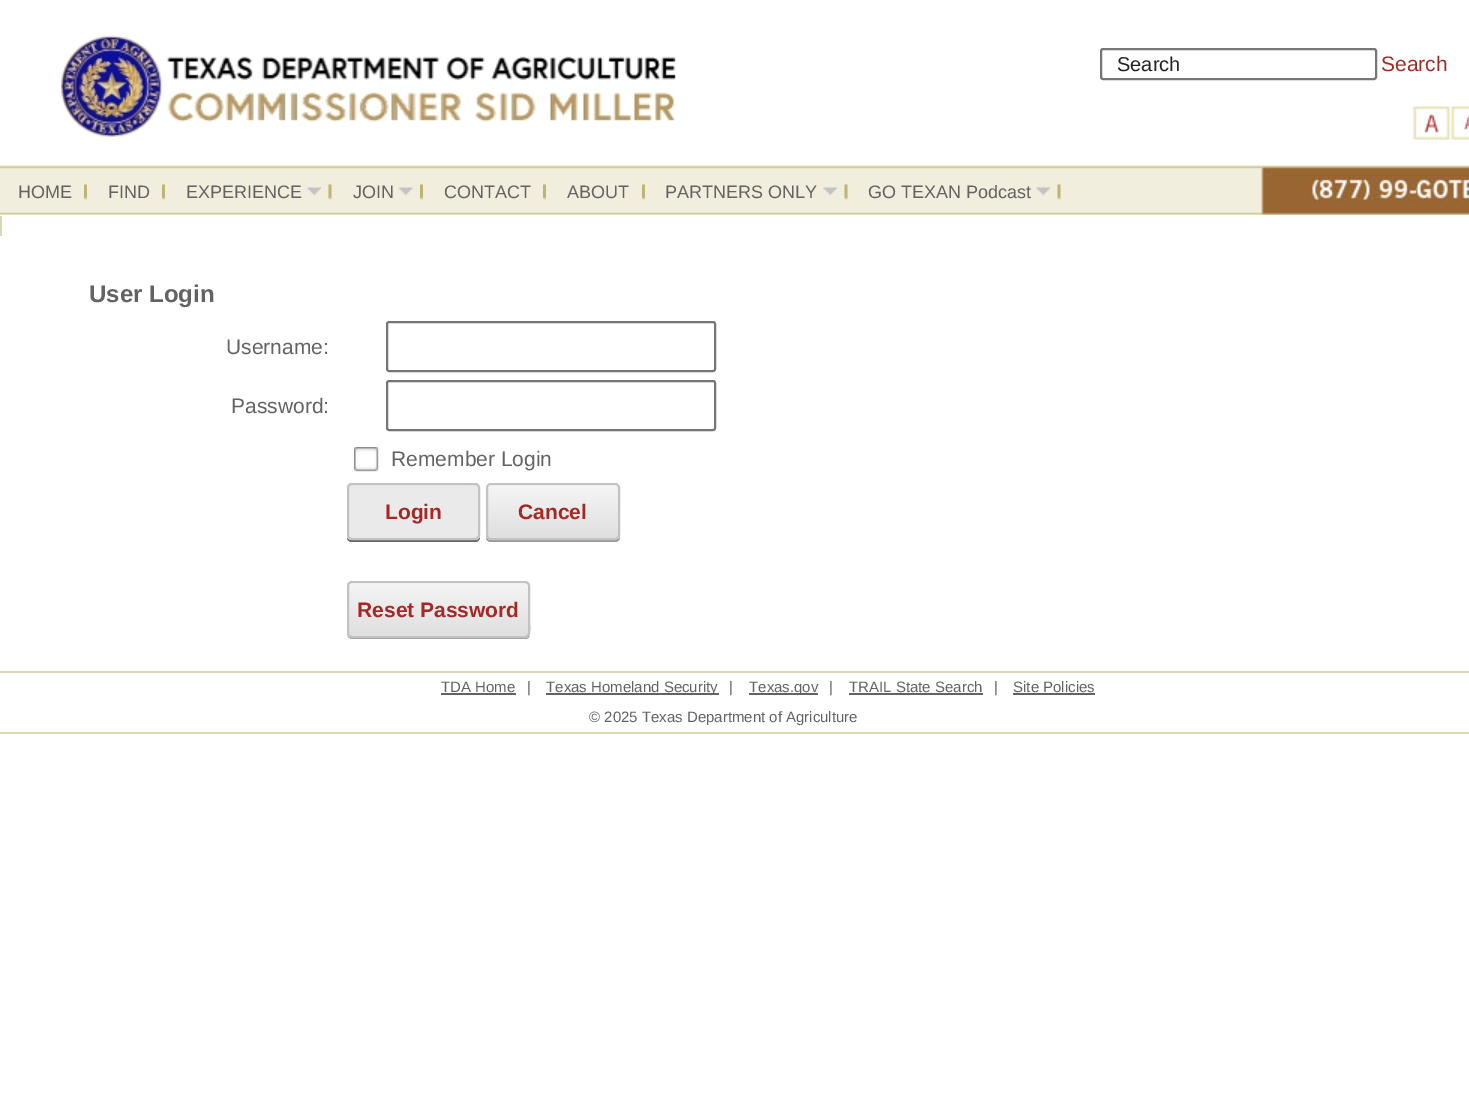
%!PS
<< /PageSize [1469 1094] >> setpagedevice
/rgb { 3 { 255 div 3 1 roll } repeat setrgbcolor } def
/font { [ exch dup neg 0 0 3 -1 roll 0 0 ] selectfont } def
/text { moveto show } def
/roundrect { 5 dict begin { /r /h /w /y /x } { exch def } forall
  x r add y moveto x w add y 2 copy h add r arct x w add y h add x 1 index r arct
  x y h add x y r arct x y 2 copy exch w add exch r arct closepath end } def
/picture { 5 dict begin { /h /w /y /x /name } { exch def } forall
  gsave x y translate w h scale
  w h 8 [w 0 0 h 0 0] name (r) file false 3 colorimage grestore end } def
0 1094 translate 1 -1 scale
4 setmiterlimit
255 255 255 rgb
0 0 1469 1094 rectfill
(img_01.rgb) 59 35 617 104 picture
118 118 118 rgb
2 setlinewidth
1101 49 275 30 2 roundrect stroke
(img_03.rgb) 1450 106 19 34 picture
(img_02.rgb) 1413 106 38 34 picture
(img_04.rgb) 0 165 1469 50 picture
(img_05.rgb) 1261 165 208 50 picture
(img_06.rgb) 84 184 3 16 picture
(img_06.rgb) 162 184 3 16 picture
(img_07.rgb) 328 184 4 16 picture
(img_08.rgb) 307 187 14 9 picture
(img_09.rgb) 420 184 3 16 picture
(img_10.rgb) 398 187 15 9 picture
(img_06.rgb) 543 184 3 16 picture
(img_06.rgb) 642 184 3 16 picture
(img_07.rgb) 844 184 4 16 picture
(img_11.rgb) 823 187 14 9 picture
(img_07.rgb) 1057 184 4 16 picture
(img_08.rgb) 1036 187 14 9 picture
219 215 177 rgb
0 216 2 20 rectfill
118 118 118 rgb
387 322 328 49 2 roundrect stroke
387 381 328 49 2 roundrect stroke
(img_12.rgb) 354 447 25 25 picture
102 102 102 rgb
347 538 moveto 0 2 2 4 5 4 rcurveto 123 0 rlineto 3 0 5 -2 5 -5 rcurveto 0 -1 rlineto 0 2 -2 4 -4 4 rcurveto -125 0 rlineto -2 0 -3 -1 -4 -2 rcurveto closepath fill
234 234 234 rgb
347 483 133 57 5 roundrect fill
242 242 242 rgb
351 486 moveto 104 0 rlineto 28 0 23 -5 23 19 rcurveto 0 33 rlineto 1 0 1 -1 1 -2 rcurveto 0 -48 rlineto 0 -2 -1 -3 -3 -3 rcurveto -125 0 rlineto -2 0 -3 1 -3 3 rcurveto 0 1 rlineto 0 -2 1 -3 3 -3 rcurveto closepath fill
194 194 194 rgb
348 484 131 55 4 roundrect stroke
153 153 153 rgb
486 536 moveto 0 1 rlineto 0 3 2 5 5 5 rcurveto 124 0 rlineto 3 0 5 -2 5 -5 rcurveto 0 -47 rlineto 0 -2 rlineto 0 48 rlineto 0 2 -3 4 -5 4 rcurveto -125 0 rlineto -2 0 -4 -2 -4 -4 rcurveto closepath fill
gsave
486 483 134 57 5 roundrect clip newpath
gsave 486 485 moveto 134 0 rlineto 0 54 rlineto -134 0 rlineto closepath clip newpath
<< /ShadingType 2 /ColorSpace /DeviceRGB /Coords [553 485 553 539] /Extend [true true] /Function << /FunctionType 2 /Domain [0 1] /C0 [0.961 0.961 0.961] /C1 [0.875 0.875 0.875] /N 1 >> >> shfill grestore
grestore
255 255 255 rgb
490 486 moveto 125 0 rlineto 2 0 3 1 3 3 rcurveto 0 -2 0 -4 -2 -4 rcurveto -126 0 rlineto -2 0 -2 2 -2 4 rcurveto 0 -2 1 -3 2 -3 rcurveto closepath fill
194 194 194 rgb
487 484 132 55 4 roundrect stroke
153 153 153 rgb
347 635 moveto 1 2 3 4 5 4 rcurveto 173 0 rlineto 3 0 5 -2 5 -5 rcurveto 0 -47 rlineto -1 -2 rlineto 1 40 rlineto 0 3 1 12 -5 13 rcurveto -175 -1 rlineto -1 0 -2 0 -3 -2 rcurveto closepath fill
gsave
347 581 183 57 5 roundrect clip newpath
gsave 347 582 moveto 183 0 rlineto 0 54 rlineto -183 0 rlineto closepath clip newpath
<< /ShadingType 2 /ColorSpace /DeviceRGB /Coords [438 582 438 636] /Extend [true true] /Function << /FunctionType 2 /Domain [0 1] /C0 [0.961 0.961 0.961] /C1 [0.875 0.875 0.875] /N 1 >> >> shfill grestore
grestore
255 255 255 rgb
351 584 moveto 174 0 rlineto 2 0 3 1 3 2 rcurveto 0 -1 rlineto 0 -2 -1 -3 -3 -3 rcurveto -174 0 rlineto -2 0 -3 1 -3 3 rcurveto 0 1 rlineto 0 -1 1 -2 3 -2 rcurveto closepath fill
194 194 194 rgb
348 582 181 55 4 roundrect stroke
219 215 177 rgb
0 671 1469 2 rectfill
0 732 1469 2 rectfill
100 98 98 rgb
441 693 75 2 rectfill
546 693 173 2 rectfill
749 693 69 2 rectfill
849 693 134 2 rectfill
1013 693 82 2 rectfill
/LiberationSans-Regular 20 font
34 34 34 rgb
(Search) 1117 71 text
/LiberationSans-Regular 21 font
164 41 37 rgb
(Search) 1381 71 text
/LiberationSans-Regular 18 font
100 98 98 rgb
(HOME) 18 198 text
(FIND) 108 198 text
(EXPERIENCE) 186 198 text
(JOIN) 353 198 text
(CONTACT) 444 198 text
(ABOUT) 567 198 text
(PARTNERS ONLY) 665 198 text
(GO TEXAN Podcast) 868 198 text
/LiberationSans-Bold 24 font
(User Login) 89 302 text
/LiberationSans-Regular 21 font
(Username:) 226 354 text
(Password:) 231 413 text
(Remember Login) 391 466 text
/LiberationSans-Bold 21 font
164 41 37 rgb
(Login) 385 519 text
(Cancel) 518 519 text
(Reset Password) 357 617 text
/LiberationSans-Regular 15 font
100 98 98 rgb
(TDA Home) 441 692 text
(|) 527 692 text
(Texas Homeland Security) 546 692 text
(|) 729 692 text
(Texas.gov) 749 692 text
(|) 829 692 text
(TRAIL State Search) 849 692 text
(|) 994 692 text
(Site Policies) 1013 692 text
(© 2025 Texas Department of Agriculture) 589 722 text
showpage
